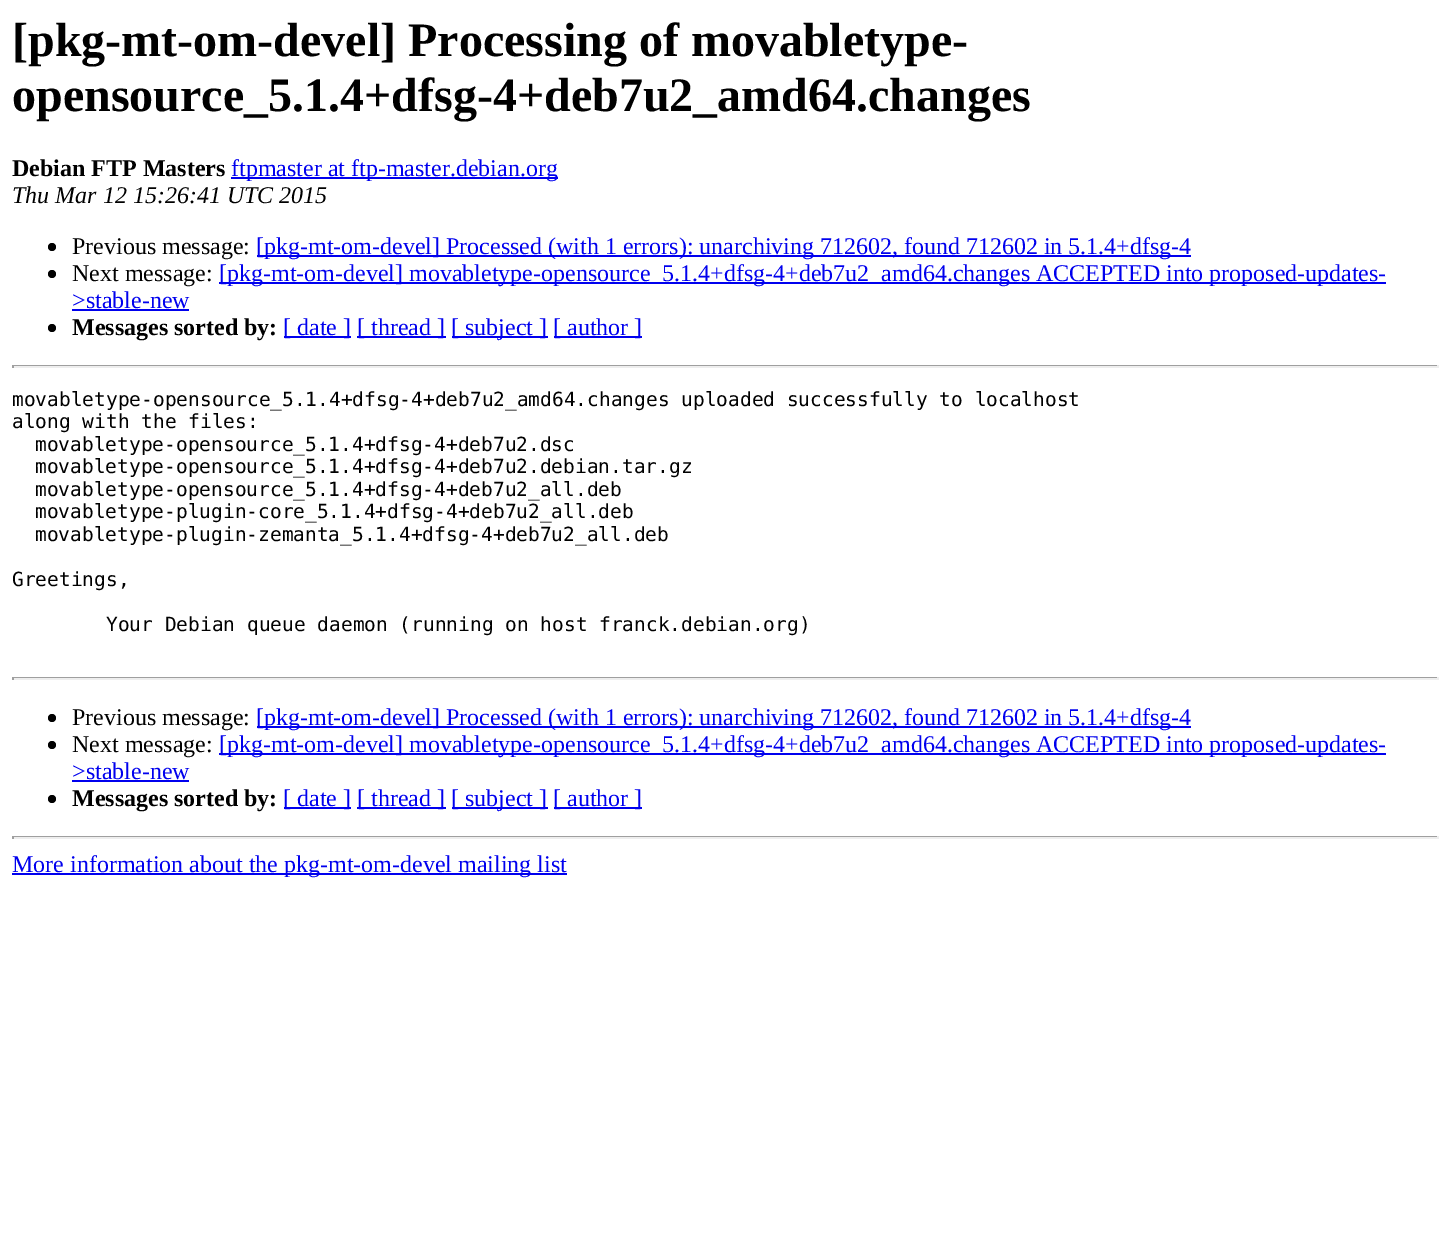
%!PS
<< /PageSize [1450 1252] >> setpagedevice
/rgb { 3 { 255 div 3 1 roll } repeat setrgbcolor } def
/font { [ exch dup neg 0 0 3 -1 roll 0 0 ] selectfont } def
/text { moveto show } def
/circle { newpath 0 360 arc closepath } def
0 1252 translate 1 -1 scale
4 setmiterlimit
255 255 255 rgb
0 0 1450 1252 rectfill
0 0 238 rgb
231 177 327 2 rectfill
0 0 0 rgb
52 247 4 circle fill
0 0 238 rgb
257 255 934 2 rectfill
0 0 0 rgb
52 274 4 circle fill
0 0 238 rgb
219 282 1167 2 rectfill
72 309 117 2 rectfill
0 0 0 rgb
52 328 4 circle fill
0 0 238 rgb
284 336 67 2 rectfill
357 336 89 2 rectfill
452 336 96 2 rectfill
554 336 88 2 rectfill
159 159 159 rgb
12 365 1427 1 rectfill
238 238 238 rgb
1437 365 2 3 rectfill
12 366 1427 2 rectfill
159 159 159 rgb
12 365 2 3 rectfill
12 677 1427 1 rectfill
238 238 238 rgb
1437 677 2 3 rectfill
12 678 1427 2 rectfill
159 159 159 rgb
12 677 2 3 rectfill
0 0 0 rgb
52 718 4 circle fill
0 0 238 rgb
257 726 934 2 rectfill
0 0 0 rgb
52 745 4 circle fill
0 0 238 rgb
219 753 1167 2 rectfill
72 780 117 2 rectfill
0 0 0 rgb
52 799 4 circle fill
0 0 238 rgb
284 807 67 2 rectfill
357 807 89 2 rectfill
452 807 96 2 rectfill
554 807 88 2 rectfill
159 159 159 rgb
12 836 1427 1 rectfill
238 238 238 rgb
1437 836 2 3 rectfill
12 837 1427 2 rectfill
159 159 159 rgb
12 836 2 3 rectfill
0 0 238 rgb
12 873 555 2 rectfill
/LiberationSerif-Bold 48 font
0 0 0 rgb
([pkg-mt-om-devel] Processing of movabletype-) 12 56 text
(opensource_5.1.4+dfsg-4+deb7u2_amd64.changes) 12 111 text
/LiberationSerif-Bold 24 font
(Debian FTP Masters) 12 176 text
/LiberationSerif-Regular 24 font
0 0 238 rgb
(ftpmaster at ftp-master.debian.org) 231 176 text
/LiberationSerif-Italic 24 font
0 0 0 rgb
(Thu Mar 12 15:26:41 UTC 2015) 12 203 text
/LiberationSerif-Regular 24 font
(Previous message:) 72 254 text
0 0 238 rgb
([pkg-mt-om-devel] Processed \(with 1 errors\): unarchiving 712602, found 712602 in 5.1.4+dfsg-4) 256 254 text
0 0 0 rgb
(Next message:) 72 281 text
0 0 238 rgb
([pkg-mt-om-devel] movabletype-opensource_5.1.4+dfsg-4+deb7u2_amd64.changes ACCEPTED into proposed-updates-) 219 281 text
(>stable-new) 72 308 text
/LiberationSerif-Bold 24 font
0 0 0 rgb
(Messages sorted by:) 72 335 text
/LiberationSerif-Regular 24 font
0 0 238 rgb
([ date ]) 283 335 text
([ thread ]) 357 335 text
([ subject ]) 451 335 text
([ author ]) 553 335 text
/DejaVuSansMono-Regular 19.5 font
0 0 0 rgb
(movabletype-opensource_5.1.4+dfsg-4+deb7u2_amd64.changes uploaded successfully to localhost) 12 406 text
(along with the files:) 12 428 text
(movabletype-opensource_5.1.4+dfsg-4+deb7u2.dsc) 35 451 text
(movabletype-opensource_5.1.4+dfsg-4+deb7u2.debian.tar.gz) 35 473 text
(movabletype-opensource_5.1.4+dfsg-4+deb7u2_all.deb) 35 496 text
(movabletype-plugin-core_5.1.4+dfsg-4+deb7u2_all.deb) 35 518 text
(movabletype-plugin-zemanta_5.1.4+dfsg-4+deb7u2_all.deb) 35 541 text
(Greetings,) 12 586 text
(Your Debian queue daemon \(running on host franck.debian.org\)) 106 631 text
/LiberationSerif-Regular 24 font
(Previous message:) 72 725 text
0 0 238 rgb
([pkg-mt-om-devel] Processed \(with 1 errors\): unarchiving 712602, found 712602 in 5.1.4+dfsg-4) 256 725 text
0 0 0 rgb
(Next message:) 72 752 text
0 0 238 rgb
([pkg-mt-om-devel] movabletype-opensource_5.1.4+dfsg-4+deb7u2_amd64.changes ACCEPTED into proposed-updates-) 219 752 text
(>stable-new) 72 779 text
/LiberationSerif-Bold 24 font
0 0 0 rgb
(Messages sorted by:) 72 806 text
/LiberationSerif-Regular 24 font
0 0 238 rgb
([ date ]) 283 806 text
([ thread ]) 357 806 text
([ subject ]) 451 806 text
([ author ]) 553 806 text
(More information about the pkg-mt-om-devel mailing list) 12 872 text
showpage
